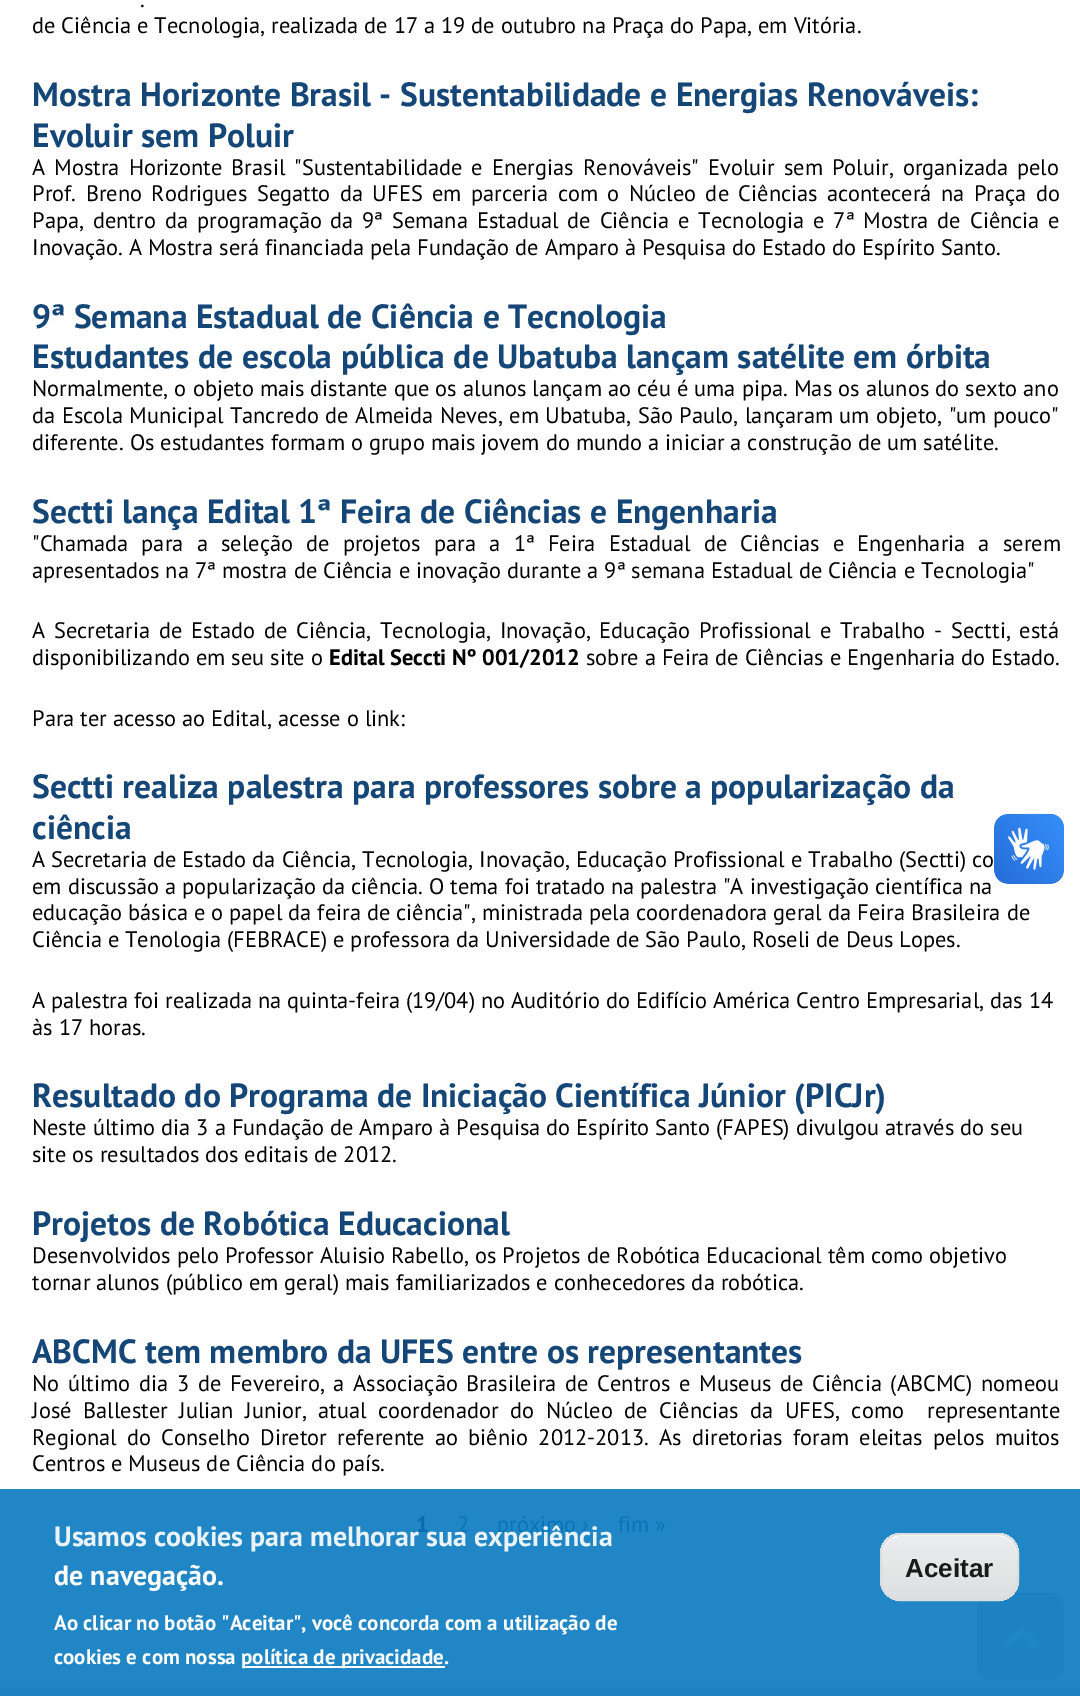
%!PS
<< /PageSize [1080 1696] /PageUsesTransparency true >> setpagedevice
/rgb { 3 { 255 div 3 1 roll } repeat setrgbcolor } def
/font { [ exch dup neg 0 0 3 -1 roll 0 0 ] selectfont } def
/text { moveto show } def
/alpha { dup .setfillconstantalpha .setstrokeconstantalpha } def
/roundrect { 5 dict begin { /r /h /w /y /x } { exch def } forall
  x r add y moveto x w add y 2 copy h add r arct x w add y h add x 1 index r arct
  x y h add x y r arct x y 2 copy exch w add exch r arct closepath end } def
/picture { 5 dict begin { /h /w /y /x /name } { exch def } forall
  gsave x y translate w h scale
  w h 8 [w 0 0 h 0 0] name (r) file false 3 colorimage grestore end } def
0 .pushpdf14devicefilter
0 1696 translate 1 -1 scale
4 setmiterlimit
28 130 193 rgb
0 0 1080 1696 rectfill
255 255 255 rgb
0 0 1080 1489 rectfill
32 134 197 rgb
0 1489 1080 198 rectfill
(img_01.rgb) 994 813 70 71 picture
(img_02.rgb) 994 814 70 70 picture
255 255 255 rgb
242 1666 203 2 rectfill
28 130 193 rgb
977 1593 87 87 14 roundrect fill
0.9 alpha
237 237 237 rgb
880 1533 139 68 21 roundrect fill
gsave
880 1533 139 68 21 roundrect clip newpath
1 alpha
gsave 892 1533 moveto 115 0 rlineto 0 2 rlineto -115 0 rlineto closepath clip newpath
<< /ShadingType 2 /ColorSpace /DeviceRGB /Coords [949 1470 949 1535] /Extend [true true] /Function << /FunctionType 3 /Domain [0 1] /Functions [<< /FunctionType 2 /Domain [0 1] /C0 [0.937 0.937 0.937] /C1 [0.937 0.937 0.937] /N 1 >> << /FunctionType 2 /Domain [0 1] /C0 [0.937 0.937 0.937] /C1 [0.886 0.886 0.886] /N 1 >>] /Bounds [0.05] /Encode [0 1 0 1] >> >> shfill grestore
0.9 alpha
gsave 880 1535 moveto 139 0 rlineto 0 65 rlineto -139 0 rlineto closepath clip newpath
<< /ShadingType 2 /ColorSpace /DeviceRGB /Coords [949 1535 949 1600] /Extend [true true] /Function << /FunctionType 3 /Domain [0 1] /Functions [<< /FunctionType 2 /Domain [0 1] /C0 [0.929 0.929 0.929] /C1 [0.929 0.929 0.929] /N 1 >> << /FunctionType 2 /Domain [0 1] /C0 [0.929 0.929 0.929] /C1 [0.875 0.875 0.875] /N 1 >>] /Bounds [0.05] /Encode [0 1 0 1] >> >> shfill grestore
gsave 894 1600 moveto 111 0 rlineto 0 1 rlineto -111 0 rlineto closepath clip newpath
<< /ShadingType 2 /ColorSpace /DeviceRGB /Coords [949 1600 949 1664] /Extend [true true] /Function << /FunctionType 3 /Domain [0 1] /Functions [<< /FunctionType 2 /Domain [0 1] /C0 [0.929 0.929 0.929] /C1 [0.929 0.929 0.929] /N 1 >> << /FunctionType 2 /Domain [0 1] /C0 [0.929 0.929 0.929] /C1 [0.875 0.875 0.875] /N 1 >>] /Bounds [0.05] /Encode [0 1 0 1] >> >> shfill grestore
grestore
1 alpha
255 255 255 rgb
901 1536 moveto 97 0 rlineto 10 0 19 9 19 20 rcurveto 0 -2 rlineto 0 -10 -9 -19 -19 -19 rcurveto -97 0 rlineto -10 0 -19 9 -19 19 rcurveto 0 2 rlineto 0 -11 9 -20 19 -20 rcurveto closepath fill
0.9 alpha
220 220 220 rgb
2 setlinewidth
881 1534 137 66 20 roundrect stroke
1 alpha
(img_03.rgb) 1002 1625 38 24 picture
/PTSans-Regular 22.4 font
0 0 0 rgb
(.) 140 7 text
(de Ciência e Tecnologia, realizada de 17 a 19 de outubro na Praça do Papa, em Vitória.) 32 33 text
/PTSans-Bold 33.6 font
21 70 120 rgb
(Mostra Horizonte Brasil - Sustentabilidade e Energias Renováveis:) 32 106 text
(Evoluir sem Poluir) 32 147 text
/PTSans-Regular 22.4 font
0 0 0 rgb
32 175 moveto 3 0 32 (A Mostra Horizonte Brasil "Sustentabilidade e Energias) widthshow
583 175 moveto 3 0 32 (Renováveis" Evoluir sem Poluir, organizada pelo) widthshow
32 201 moveto 3.5 0 32 (Prof. Breno Rodrigues Segatto da UFES em parceria com o Núcleo de Ciências acontecerá na Praça do) widthshow
32 228 moveto 2.9 0 32 (Papa, dentro da) widthshow
(programação) 197 228 text
(da) 330 228 text
362 228 moveto 2.9 0 32 (9ª Semana Estadual de Ciência e Tecnologia e 7ª Mostra de Ciência e) widthshow
(Inovação. A Mostra será financiada pela Fundação de Amparo à Pesquisa do Estado do Espírito Santo.) 32 255 text
/PTSans-Bold 33.6 font
21 70 120 rgb
(9ª Semana Estadual de Ciência e Tecnologia) 32 328 text
(Estudantes de escola pública de Ubatuba lançam satélite em órbita) 32 368 text
/PTSans-Regular 22.4 font
0 0 0 rgb
32 396 moveto 0.1 0 32 (Normalmente, o objeto mais distante que os alunos lançam ao céu é uma pipa. Mas os alunos do sexto ano) widthshow
32 423 moveto 0.5 0 32 (da Escola Municipal Tancredo de Almeida Neves, em Ubatuba, São Paulo, lançaram um objeto, "um pouco") widthshow
(diferente. Os estudantes formam o grupo mais jovem do mundo a iniciar a construção de um satélite.) 32 450 text
/PTSans-Bold 33.6 font
21 70 120 rgb
(Sectti lança Edital 1ª Feira de Ciências e Engenharia) 32 523 text
/PTSans-Regular 22.4 font
0 0 0 rgb
32 551 moveto 7.25 0 32 ("Chamada para a seleção de projetos para a 1ª Feira Estadual de Ciências e Engenharia a serem) widthshow
(apresentados na 7ª mostra de Ciência e inovação durante a 9ª semana Estadual de Ciência e Tecnologia") 32 578 text
32 638 moveto 2.9 0 32 (A Secretaria de Estado de Ciência, Tecnologia, Inovação, Educação Profissional e Trabalho - Sectti, está) widthshow
(disponibilizando em seu site o) 32 665 text
/PTSans-Bold 22.4 font
(Edital Seccti Nº 001/2012) 329 665 text
/PTSans-Regular 22.4 font
(sobre a Feira de Ciências e Engenharia do Estado.) 586 665 text
(Para ter acesso ao Edital, acesse o link:) 32 726 text
/PTSans-Bold 33.6 font
21 70 120 rgb
(Sectti realiza palestra para professores sobre a popularização da) 32 798 text
(ciência) 32 839 text
/PTSans-Regular 22.4 font
0 0 0 rgb
(A Secretaria de Estado da Ciência, Tecnologia, Inovação, Educação Profissional e Trabalho \(Sectti\) co) 32 867 text
(em discussão a popularização da ciência. O tema foi tratado na palestra "A investigação científica na) 32 894 text
(educação básica e o papel da feira de ciência", ministrada pela coordenadora geral da Feira Brasileira de) 32 920 text
(Ciência e Tenologia \(FEBRACE\) e professora da Universidade de São Paulo, Roseli de Deus Lopes.) 32 947 text
(A palestra foi realizada na quinta-feira \(19/04\) no Auditório do Edifício América Centro Empresarial, das 14) 32 1008 text
(às 17 horas.) 32 1035 text
/PTSans-Bold 33.6 font
21 70 120 rgb
(Resultado do Programa de Iniciação Científica Júnior \(PICJr\)) 32 1107 text
/PTSans-Regular 22.4 font
0 0 0 rgb
(Neste último dia 3 a Fundação de Amparo à Pesquisa do Espírito Santo \(FAPES\) divulgou através do seu) 32 1135 text
(site os resultados dos editais de 2012.) 32 1162 text
/PTSans-Bold 33.6 font
21 70 120 rgb
(Projetos de Robótica Educacional) 32 1235 text
/PTSans-Regular 22.4 font
0 0 0 rgb
(Desenvolvidos pelo Professor Aluisio Rabello, os Projetos de Robótica Educacional têm como objetivo) 32 1263 text
(tornar alunos \(público em geral\) mais familiarizados e conhecedores da robótica.) 32 1290 text
/PTSans-Bold 33.6 font
21 70 120 rgb
(ABCMC tem membro da UFES entre os representantes) 32 1363 text
/PTSans-Regular 22.4 font
0 0 0 rgb
32 1391 moveto 2.75 0 32 (No último dia 3 de Fevereiro, a Associação Brasileira de Centros e Museus de Ciência \(ABCMC\) nomeou) widthshow
32 1418 moveto 5.6 0 32 (José Ballester Julian Junior, atual coordenador do Núcleo de Ciências da UFES, como  representante) widthshow
32 1445 moveto 4.25 0 32 (Regional do Conselho Diretor referente ao biênio 2012-2013. As diretorias foram eleitas pelos muitos) widthshow
(Centros e Museus de Ciência do país.) 32 1471 text
/PTSans-Bold 22.4 font
6 109 172 rgb
(1) 416 1532 text
/PTSans-Regular 22.4 font
8 116 184 rgb
(2) 457 1532 text
(próximo ›) 497 1532 text
(fim ») 618 1532 text
/PTSans-Bold 28 font
233 243 249 rgb
(Usamos cookies para melhorar sua experiência) 54 1546 text
255 255 255 rgb
(de navegação.) 54 1585 text
/PTSans-Bold 21 font
(Ao clicar no botão "Aceitar", você concorda com a utilização de) 54 1630 text
(cookies e com nossa) 54 1664 text
(política de privacidade.) 241 1664 text
/LiberationSans-Bold 26 font
26 26 26 rgb
(Aceitar) 905 1577 text
.poppdf14devicefilter showpage
